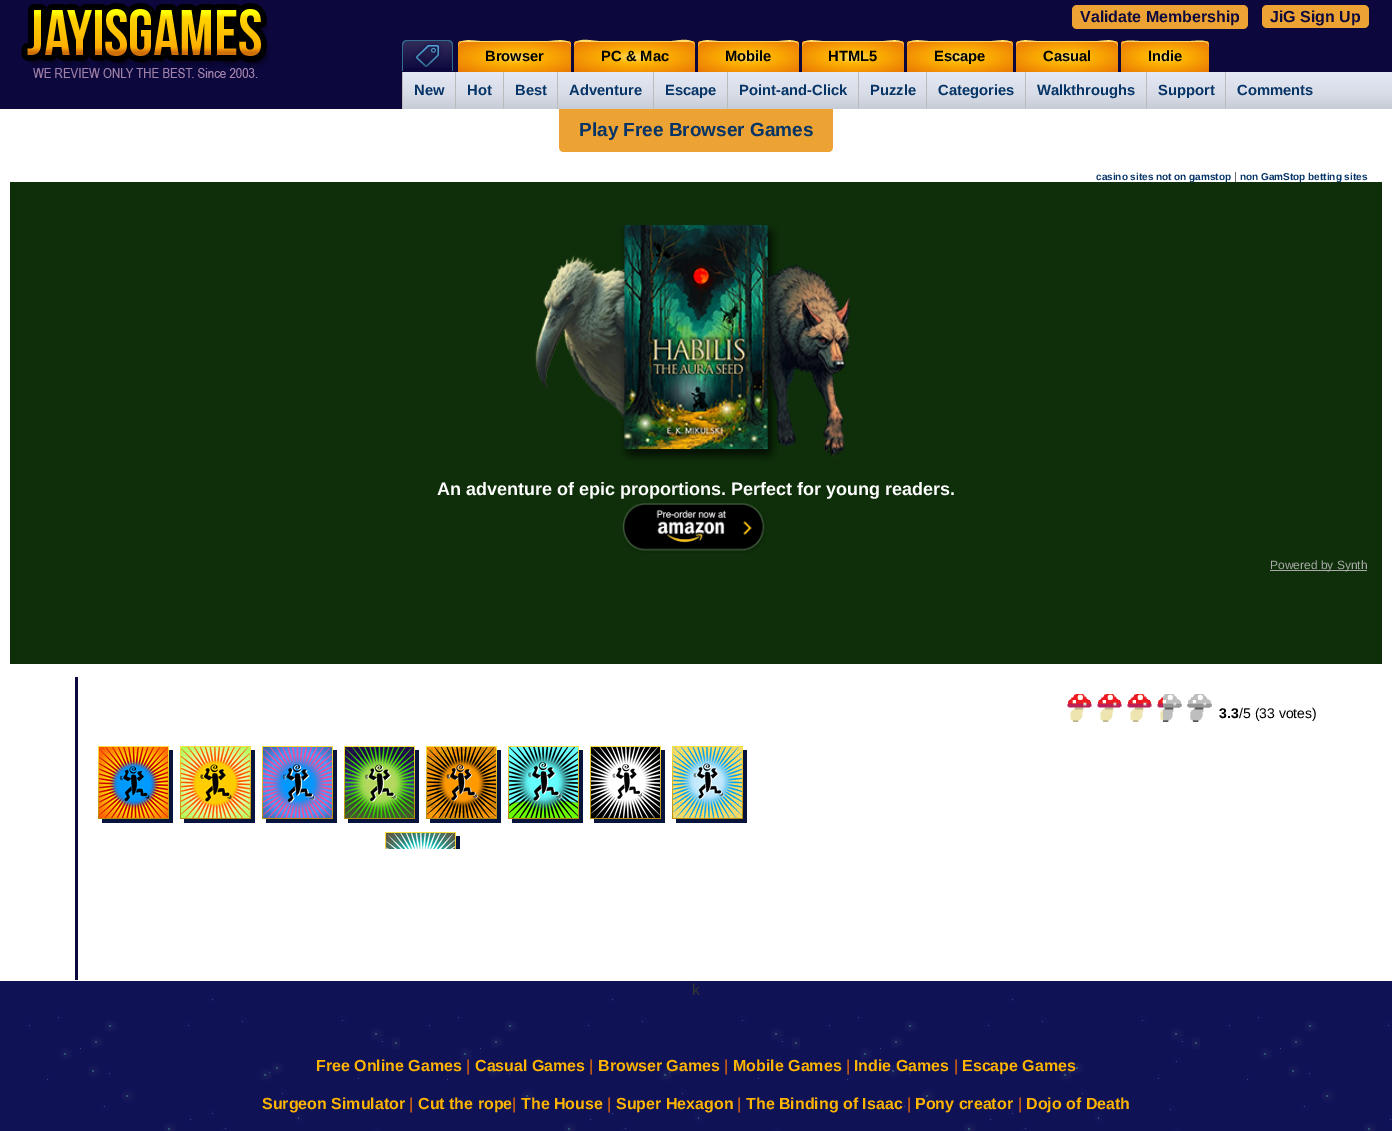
%!PS
<< /PageSize [1392 1131] >> setpagedevice
/rgb { 3 { 255 div 3 1 roll } repeat setrgbcolor } def
/font { [ exch dup neg 0 0 3 -1 roll 0 0 ] selectfont } def
/text { moveto show } def
/roundrect { 5 dict begin { /r /h /w /y /x } { exch def } forall
  x r add y moveto x w add y 2 copy h add r arct x w add y h add x 1 index r arct
  x y h add x y r arct x y 2 copy exch w add exch r arct closepath end } def
/picture { 5 dict begin { /h /w /y /x /name } { exch def } forall
  gsave x y translate w h scale
  w h 8 [w 0 0 h 0 0] name (r) file false 3 colorimage grestore end } def
0 1131 translate 1 -1 scale
4 setmiterlimit
255 255 255 rgb
0 0 1392 1131 rectfill
12 7 61 rgb
0 0 1392 109 rectfill
(img_01.rgb) 21 3 249 75 picture
237 163 52 rgb
1072 5 176 24 5 roundrect fill
1262 5 107 23 5 roundrect fill
gsave 463 41 moveto 103 0 rlineto 3 0 5 2 5 5 rcurveto 0 26 rlineto -113 0 rlineto 0 -26 rlineto 0 -3 2 -5 5 -5 rcurveto closepath clip newpath 515 57 translate 80 22 scale
<< /ShadingType 3 /ColorSpace /DeviceRGB /Coords [0 0 0 0 0 1] /Extend [true true] /Function << /FunctionType 3 /Domain [0 1] /Functions [<< /FunctionType 2 /Domain [0 1] /C0 [1 0.867 0.42] /C1 [1 0.867 0.42] /N 1 >> << /FunctionType 2 /Domain [0 1] /C0 [1 0.867 0.42] /C1 [1 0.706 0.004] /N 1 >> << /FunctionType 2 /Domain [0 1] /C0 [1 0.706 0.004] /C1 [0.91 0.467 0.024] /N 1 >> << /FunctionType 2 /Domain [0 1] /C0 [0.91 0.467 0.024] /C1 [0.91 0.467 0.024] /N 1 >>] /Bounds [0.01 0.29 0.99] /Encode [0 1 0 1 0 1 0 1] >> >> shfill grestore
255 221 107 rgb
463 42 moveto 103 0 rlineto 3 0 5 2 5 5 rcurveto 0 -10 -17 -6 -22 -6 rcurveto -69 0 rlineto -5 0 -22 -4 -22 6 rcurveto 0 -3 2 -5 5 -5 rcurveto closepath fill
gsave 579 41 moveto 111 0 rlineto 3 0 5 2 5 5 rcurveto 0 26 rlineto -121 0 rlineto 0 -26 rlineto 0 -3 2 -5 5 -5 rcurveto closepath clip newpath 635 57 translate 86 22 scale
<< /ShadingType 3 /ColorSpace /DeviceRGB /Coords [0 0 0 0 0 1] /Extend [true true] /Function << /FunctionType 3 /Domain [0 1] /Functions [<< /FunctionType 2 /Domain [0 1] /C0 [1 0.867 0.42] /C1 [1 0.867 0.42] /N 1 >> << /FunctionType 2 /Domain [0 1] /C0 [1 0.867 0.42] /C1 [1 0.706 0.004] /N 1 >> << /FunctionType 2 /Domain [0 1] /C0 [1 0.706 0.004] /C1 [0.91 0.467 0.024] /N 1 >> << /FunctionType 2 /Domain [0 1] /C0 [0.91 0.467 0.024] /C1 [0.91 0.467 0.024] /N 1 >>] /Bounds [0.01 0.29 0.99] /Encode [0 1 0 1 0 1 0 1] >> >> shfill grestore
579 42 moveto 111 0 rlineto 3 0 5 2 5 5 rcurveto 0 -11 -19 -6 -23 -6 rcurveto -74 0 rlineto -5 0 -24 -5 -24 6 rcurveto 0 -3 2 -5 5 -5 rcurveto closepath fill
gsave 703 41 moveto 91 0 rlineto 3 0 5 2 5 5 rcurveto 0 26 rlineto -101 0 rlineto 0 -26 rlineto 0 -3 2 -5 5 -5 rcurveto closepath clip newpath 749 57 translate 71 22 scale
<< /ShadingType 3 /ColorSpace /DeviceRGB /Coords [0 0 0 0 0 1] /Extend [true true] /Function << /FunctionType 3 /Domain [0 1] /Functions [<< /FunctionType 2 /Domain [0 1] /C0 [1 0.867 0.42] /C1 [1 0.867 0.42] /N 1 >> << /FunctionType 2 /Domain [0 1] /C0 [1 0.867 0.42] /C1 [1 0.706 0.004] /N 1 >> << /FunctionType 2 /Domain [0 1] /C0 [1 0.706 0.004] /C1 [0.91 0.467 0.024] /N 1 >> << /FunctionType 2 /Domain [0 1] /C0 [0.91 0.467 0.024] /C1 [0.91 0.467 0.024] /N 1 >>] /Bounds [0.01 0.29 0.99] /Encode [0 1 0 1 0 1 0 1] >> >> shfill grestore
703 42 moveto 91 0 rlineto 3 0 5 2 5 5 rcurveto 0 -10 -15 -6 -20 -6 rcurveto -61 0 rlineto -5 0 -20 -4 -20 6 rcurveto 0 -3 2 -5 5 -5 rcurveto closepath fill
gsave 807 41 moveto 92 0 rlineto 3 0 5 2 5 5 rcurveto 0 26 rlineto -102 0 rlineto 0 -26 rlineto 0 -3 2 -5 5 -5 rcurveto closepath clip newpath 853 57 translate 72 22 scale
<< /ShadingType 3 /ColorSpace /DeviceRGB /Coords [0 0 0 0 0 1] /Extend [true true] /Function << /FunctionType 3 /Domain [0 1] /Functions [<< /FunctionType 2 /Domain [0 1] /C0 [1 0.867 0.42] /C1 [1 0.867 0.42] /N 1 >> << /FunctionType 2 /Domain [0 1] /C0 [1 0.867 0.42] /C1 [1 0.706 0.004] /N 1 >> << /FunctionType 2 /Domain [0 1] /C0 [1 0.706 0.004] /C1 [0.91 0.467 0.024] /N 1 >> << /FunctionType 2 /Domain [0 1] /C0 [0.91 0.467 0.024] /C1 [0.91 0.467 0.024] /N 1 >>] /Bounds [0.01 0.29 0.99] /Encode [0 1 0 1 0 1 0 1] >> >> shfill grestore
807 42 moveto 92 0 rlineto 3 0 5 2 5 5 rcurveto 0 -10 -15 -6 -20 -6 rcurveto -62 0 rlineto -5 0 -20 -4 -20 6 rcurveto 0 -3 2 -5 5 -5 rcurveto closepath fill
gsave 912 41 moveto 96 0 rlineto 3 0 5 2 5 5 rcurveto 0 26 rlineto -106 0 rlineto 0 -26 rlineto 0 -3 2 -5 5 -5 rcurveto closepath clip newpath 960 57 translate 75 22 scale
<< /ShadingType 3 /ColorSpace /DeviceRGB /Coords [0 0 0 0 0 1] /Extend [true true] /Function << /FunctionType 3 /Domain [0 1] /Functions [<< /FunctionType 2 /Domain [0 1] /C0 [1 0.867 0.42] /C1 [1 0.867 0.42] /N 1 >> << /FunctionType 2 /Domain [0 1] /C0 [1 0.867 0.42] /C1 [1 0.706 0.004] /N 1 >> << /FunctionType 2 /Domain [0 1] /C0 [1 0.706 0.004] /C1 [0.91 0.467 0.024] /N 1 >> << /FunctionType 2 /Domain [0 1] /C0 [0.91 0.467 0.024] /C1 [0.91 0.467 0.024] /N 1 >>] /Bounds [0.01 0.29 0.99] /Encode [0 1 0 1 0 1 0 1] >> >> shfill grestore
912 42 moveto 96 0 rlineto 3 0 5 2 5 5 rcurveto 0 -10 -16 -6 -21 -6 rcurveto -64 0 rlineto -5 0 -21 -4 -21 6 rcurveto 0 -3 2 -5 5 -5 rcurveto closepath fill
gsave 1021 41 moveto 92 0 rlineto 3 0 5 2 5 5 rcurveto 0 26 rlineto -102 0 rlineto 0 -26 rlineto 0 -3 2 -5 5 -5 rcurveto closepath clip newpath 1067 57 translate 72 22 scale
<< /ShadingType 3 /ColorSpace /DeviceRGB /Coords [0 0 0 0 0 1] /Extend [true true] /Function << /FunctionType 3 /Domain [0 1] /Functions [<< /FunctionType 2 /Domain [0 1] /C0 [1 0.867 0.42] /C1 [1 0.867 0.42] /N 1 >> << /FunctionType 2 /Domain [0 1] /C0 [1 0.867 0.42] /C1 [1 0.706 0.004] /N 1 >> << /FunctionType 2 /Domain [0 1] /C0 [1 0.706 0.004] /C1 [0.91 0.467 0.024] /N 1 >> << /FunctionType 2 /Domain [0 1] /C0 [0.91 0.467 0.024] /C1 [0.91 0.467 0.024] /N 1 >>] /Bounds [0.01 0.29 0.99] /Encode [0 1 0 1 0 1 0 1] >> >> shfill grestore
1021 42 moveto 92 0 rlineto 3 0 5 2 5 5 rcurveto 0 -10 -15 -6 -20 -6 rcurveto -62 0 rlineto -5 0 -20 -4 -20 6 rcurveto 0 -3 2 -5 5 -5 rcurveto closepath fill
gsave 1126 41 moveto 78 0 rlineto 3 0 5 2 5 5 rcurveto 0 26 rlineto -88 0 rlineto 0 -26 rlineto 0 -3 2 -5 5 -5 rcurveto closepath clip newpath 1165 57 translate 62 22 scale
<< /ShadingType 3 /ColorSpace /DeviceRGB /Coords [0 0 0 0 0 1] /Extend [true true] /Function << /FunctionType 3 /Domain [0 1] /Functions [<< /FunctionType 2 /Domain [0 1] /C0 [1 0.867 0.42] /C1 [1 0.867 0.42] /N 1 >> << /FunctionType 2 /Domain [0 1] /C0 [1 0.867 0.42] /C1 [1 0.706 0.004] /N 1 >> << /FunctionType 2 /Domain [0 1] /C0 [1 0.706 0.004] /C1 [0.91 0.467 0.024] /N 1 >> << /FunctionType 2 /Domain [0 1] /C0 [0.91 0.467 0.024] /C1 [0.91 0.467 0.024] /N 1 >>] /Bounds [0.01 0.29 0.99] /Encode [0 1 0 1 0 1 0 1] >> >> shfill grestore
1126 42 moveto 78 0 rlineto 3 0 5 2 5 5 rcurveto 0 -9 -12 -6 -18 -6 rcurveto -52 0 rlineto -6 0 -18 -3 -18 6 rcurveto 0 -3 2 -5 5 -5 rcurveto closepath fill
(img_02.rgb) 402 41 51 27 picture
51 108 143 rgb
407 40 moveto 41 0 rlineto 3 0 5 2 5 5 rcurveto 0 26 rlineto -51 0 rlineto 0 -26 rlineto 0 -3 2 -5 5 -5 rcurveto closepath 407 41 moveto 41 0 rlineto 2 0 4 2 4 4 rcurveto 0 26 rlineto -49 0 rlineto 0 -26 rlineto 0 -2 2 -4 4 -4 rcurveto closepath eofill
gsave 403 72 moveto 989 0 rlineto 0 37 rlineto -989 0 rlineto closepath clip newpath
<< /ShadingType 2 /ColorSpace /DeviceRGB /Coords [897 72 897 109] /Extend [true true] /Function << /FunctionType 3 /Domain [0 1] /Functions [<< /FunctionType 2 /Domain [0 1] /C0 [0.894 0.914 0.961] /C1 [0.839 0.859 0.902] /N 1 >> << /FunctionType 2 /Domain [0 1] /C0 [0.839 0.859 0.902] /C1 [0.78 0.804 0.843] /N 1 >>] /Bounds [0.63] /Encode [0 1 0 1] >> >> shfill grestore
187 187 187 rgb
402 72 1 37 rectfill
455 72 1 37 rectfill
503 72 1 37 rectfill
557 72 1 37 rectfill
653 72 1 37 rectfill
727 72 1 37 rectfill
858 72 1 37 rectfill
926 72 1 37 rectfill
1025 72 1 37 rectfill
1146 72 1 37 rectfill
1225 72 1 37 rectfill
237 163 52 rgb
559 109 moveto 274 0 rlineto 0 38 rlineto 0 3 -2 5 -5 5 rcurveto -264 0 rlineto -3 0 -5 -2 -5 -5 rcurveto closepath fill
14 47 9 rgb
10 182 1372 482 rectfill
(img_03.rgb) 535 225 316 236 picture
(img_04.rgb) 622 503 144 50 picture
170 170 170 rgb
1270 570 97 1 rectfill
12 7 61 rgb
75 677 3 303 rectfill
(img_05.rgb) 1163 694 49 28 picture
(img_06.rgb) 1067 694 96 28 picture
7 20 61 rgb
102 819 moveto 0 4 rlineto 71 0 rlineto 0 -73 rlineto -4 0 rlineto 0 69 rlineto closepath fill
gsave 98 746 moveto 71 0 rlineto 0 73 rlineto -71 0 rlineto closepath clip newpath
<< /ShadingType 2 /ColorSpace /DeviceRGB /Coords [134 746 134 819] /Extend [true true] /Function << /FunctionType 2 /Domain [0 1] /C0 [0.976 0.882 0.243] /C1 [0.718 0.549 0.043] /N 1 >> >> shfill grestore
(img_07.rgb) 99 747 69 71 picture
184 819 moveto 0 4 rlineto 71 0 rlineto 0 -73 rlineto -4 0 rlineto 0 69 rlineto closepath fill
gsave 180 746 moveto 71 0 rlineto 0 73 rlineto -71 0 rlineto closepath clip newpath
<< /ShadingType 2 /ColorSpace /DeviceRGB /Coords [216 746 216 819] /Extend [true true] /Function << /FunctionType 2 /Domain [0 1] /C0 [0.976 0.882 0.243] /C1 [0.718 0.549 0.043] /N 1 >> >> shfill grestore
(img_08.rgb) 181 747 69 71 picture
266 819 moveto 0 4 rlineto 71 0 rlineto 0 -73 rlineto -4 0 rlineto 0 69 rlineto closepath fill
gsave 262 746 moveto 71 0 rlineto 0 73 rlineto -71 0 rlineto closepath clip newpath
<< /ShadingType 2 /ColorSpace /DeviceRGB /Coords [298 746 298 819] /Extend [true true] /Function << /FunctionType 2 /Domain [0 1] /C0 [0.976 0.882 0.243] /C1 [0.718 0.549 0.043] /N 1 >> >> shfill grestore
(img_09.rgb) 263 747 69 71 picture
348 819 moveto 0 4 rlineto 71 0 rlineto 0 -73 rlineto -4 0 rlineto 0 69 rlineto closepath fill
gsave 344 746 moveto 71 0 rlineto 0 73 rlineto -71 0 rlineto closepath clip newpath
<< /ShadingType 2 /ColorSpace /DeviceRGB /Coords [380 746 380 819] /Extend [true true] /Function << /FunctionType 2 /Domain [0 1] /C0 [0.976 0.882 0.243] /C1 [0.718 0.549 0.043] /N 1 >> >> shfill grestore
(img_10.rgb) 345 747 69 71 picture
430 819 moveto 0 4 rlineto 71 0 rlineto 0 -73 rlineto -4 0 rlineto 0 69 rlineto closepath fill
gsave 426 746 moveto 71 0 rlineto 0 73 rlineto -71 0 rlineto closepath clip newpath
<< /ShadingType 2 /ColorSpace /DeviceRGB /Coords [462 746 462 819] /Extend [true true] /Function << /FunctionType 2 /Domain [0 1] /C0 [0.976 0.882 0.243] /C1 [0.718 0.549 0.043] /N 1 >> >> shfill grestore
(img_11.rgb) 427 747 69 71 picture
512 819 moveto 0 4 rlineto 71 0 rlineto 0 -73 rlineto -4 0 rlineto 0 69 rlineto closepath fill
gsave 508 746 moveto 71 0 rlineto 0 73 rlineto -71 0 rlineto closepath clip newpath
<< /ShadingType 2 /ColorSpace /DeviceRGB /Coords [544 746 544 819] /Extend [true true] /Function << /FunctionType 2 /Domain [0 1] /C0 [0.976 0.882 0.243] /C1 [0.718 0.549 0.043] /N 1 >> >> shfill grestore
(img_12.rgb) 509 747 69 71 picture
594 819 moveto 0 4 rlineto 71 0 rlineto 0 -73 rlineto -4 0 rlineto 0 69 rlineto closepath fill
gsave 590 746 moveto 71 0 rlineto 0 73 rlineto -71 0 rlineto closepath clip newpath
<< /ShadingType 2 /ColorSpace /DeviceRGB /Coords [626 746 626 819] /Extend [true true] /Function << /FunctionType 2 /Domain [0 1] /C0 [0.976 0.882 0.243] /C1 [0.718 0.549 0.043] /N 1 >> >> shfill grestore
(img_13.rgb) 591 747 69 71 picture
676 819 moveto 0 4 rlineto 71 0 rlineto 0 -73 rlineto -4 0 rlineto 0 69 rlineto closepath fill
gsave 672 746 moveto 71 0 rlineto 0 73 rlineto -71 0 rlineto closepath clip newpath
<< /ShadingType 2 /ColorSpace /DeviceRGB /Coords [708 746 708 819] /Extend [true true] /Function << /FunctionType 2 /Domain [0 1] /C0 [0.976 0.882 0.243] /C1 [0.718 0.549 0.043] /N 1 >> >> shfill grestore
(img_14.rgb) 673 747 69 71 picture
gsave 385 832 moveto 71 0 rlineto 0 17 rlineto -71 0 rlineto closepath clip newpath
<< /ShadingType 2 /ColorSpace /DeviceRGB /Coords [421 832 421 905] /Extend [true true] /Function << /FunctionType 2 /Domain [0 1] /C0 [0.976 0.882 0.243] /C1 [0.718 0.549 0.043] /N 1 >> >> shfill grestore
(img_15.rgb) 386 833 69 16 picture
gsave
71 719 700 130 rectclip
389 905 moveto 0 4 rlineto 71 0 rlineto 0 -73 rlineto -4 0 rlineto 0 69 rlineto closepath fill
grestore
(img_16.rgb) 0 981 1392 150 picture
/LiberationSans-Bold 16 font
12 7 61 rgb
(Validate Membership) 1080 22 text
(JiG Sign Up) 1270 22 text
/LiberationSans-Bold 14.75 font
0 0 0 rgb
(Browser) 485 61 text
(PC & Mac) 601 61 text
(Mobile) 725 61 text
(HTML5) 828 61 text
(Escape) 934 61 text
(Casual) 1043 61 text
(Indie) 1148 61 text
6 52 102 rgb
(New) 414 95 text
(Hot) 467 95 text
(Best) 515 95 text
(Adventure) 569 95 text
(Escape) 665 95 text
(Point-and-Click) 739 95 text
(Puzzle) 870 95 text
(Categories) 938 95 text
(Walkthroughs) 1037 95 text
(Support) 1158 95 text
(Comments) 1237 95 text
/LiberationSans-Bold 19 font
(Play Free Browser Games) 579 136 text
/LiberationSans-Bold 10 font
(casino sites not on gamstop) 1096 180 text
/LiberationSans-Regular 11 font
51 51 51 rgb
(|) 1234 180 text
/LiberationSans-Bold 10 font
6 52 102 rgb
(non GamStop betting sites) 1240 180 text
/LiberationSans-Bold 18 font
255 255 255 rgb
(An adventure of epic proportions. Perfect for young readers.) 437 495 text
/LiberationSans-Regular 12 font
170 170 170 rgb
(Powered by Synth) 1270 569 text
/LiberationSans-Bold 14 font
0 0 0 rgb
(3.3) 1219 718 text
/LiberationSans-Regular 14 font
(/5 \(33 votes\)) 1239 718 text
/LiberationSans-Regular 16 font
51 51 51 rgb
(k) 692 995 text
/LiberationSans-Bold 16 font
255 181 0 rgb
(Free Online Games) 316 1071 text
/LiberationSans-Regular 16 font
254 114 1 rgb
(|) 466 1071 text
/LiberationSans-Bold 16 font
255 181 0 rgb
(Casual Games) 475 1071 text
/LiberationSans-Regular 16 font
254 114 1 rgb
(|) 589 1071 text
/LiberationSans-Bold 16 font
255 181 0 rgb
(Browser Games) 598 1071 text
/LiberationSans-Regular 16 font
254 114 1 rgb
(|) 724 1071 text
/LiberationSans-Bold 16 font
255 181 0 rgb
(Mobile Games) 733 1071 text
/LiberationSans-Regular 16 font
254 114 1 rgb
(|) 846 1071 text
/LiberationSans-Bold 16 font
255 181 0 rgb
(Indie Games) 854 1071 text
/LiberationSans-Regular 16 font
254 114 1 rgb
(|) 954 1071 text
/LiberationSans-Bold 16 font
255 181 0 rgb
(Escape Games) 962 1071 text
(Surgeon Simulator) 262 1109 text
/LiberationSans-Regular 16 font
254 114 1 rgb
(|) 409 1109 text
/LiberationSans-Bold 16 font
255 181 0 rgb
(Cut the rope) 418 1109 text
/LiberationSans-Regular 16 font
254 114 1 rgb
(|) 512 1109 text
/LiberationSans-Bold 16 font
255 181 0 rgb
(The House) 521 1109 text
/LiberationSans-Regular 16 font
254 114 1 rgb
(|) 607 1109 text
/LiberationSans-Bold 16 font
255 181 0 rgb
(Super Hexagon) 616 1109 text
/LiberationSans-Regular 16 font
254 114 1 rgb
(|) 737 1109 text
/LiberationSans-Bold 16 font
255 181 0 rgb
(The Binding of Isaac) 746 1109 text
/LiberationSans-Regular 16 font
254 114 1 rgb
(|) 907 1109 text
/LiberationSans-Bold 16 font
255 181 0 rgb
(Pony creator) 915 1109 text
/LiberationSans-Regular 16 font
254 114 1 rgb
(|) 1018 1109 text
/LiberationSans-Bold 16 font
255 181 0 rgb
(Dojo of Death) 1026 1109 text
showpage
